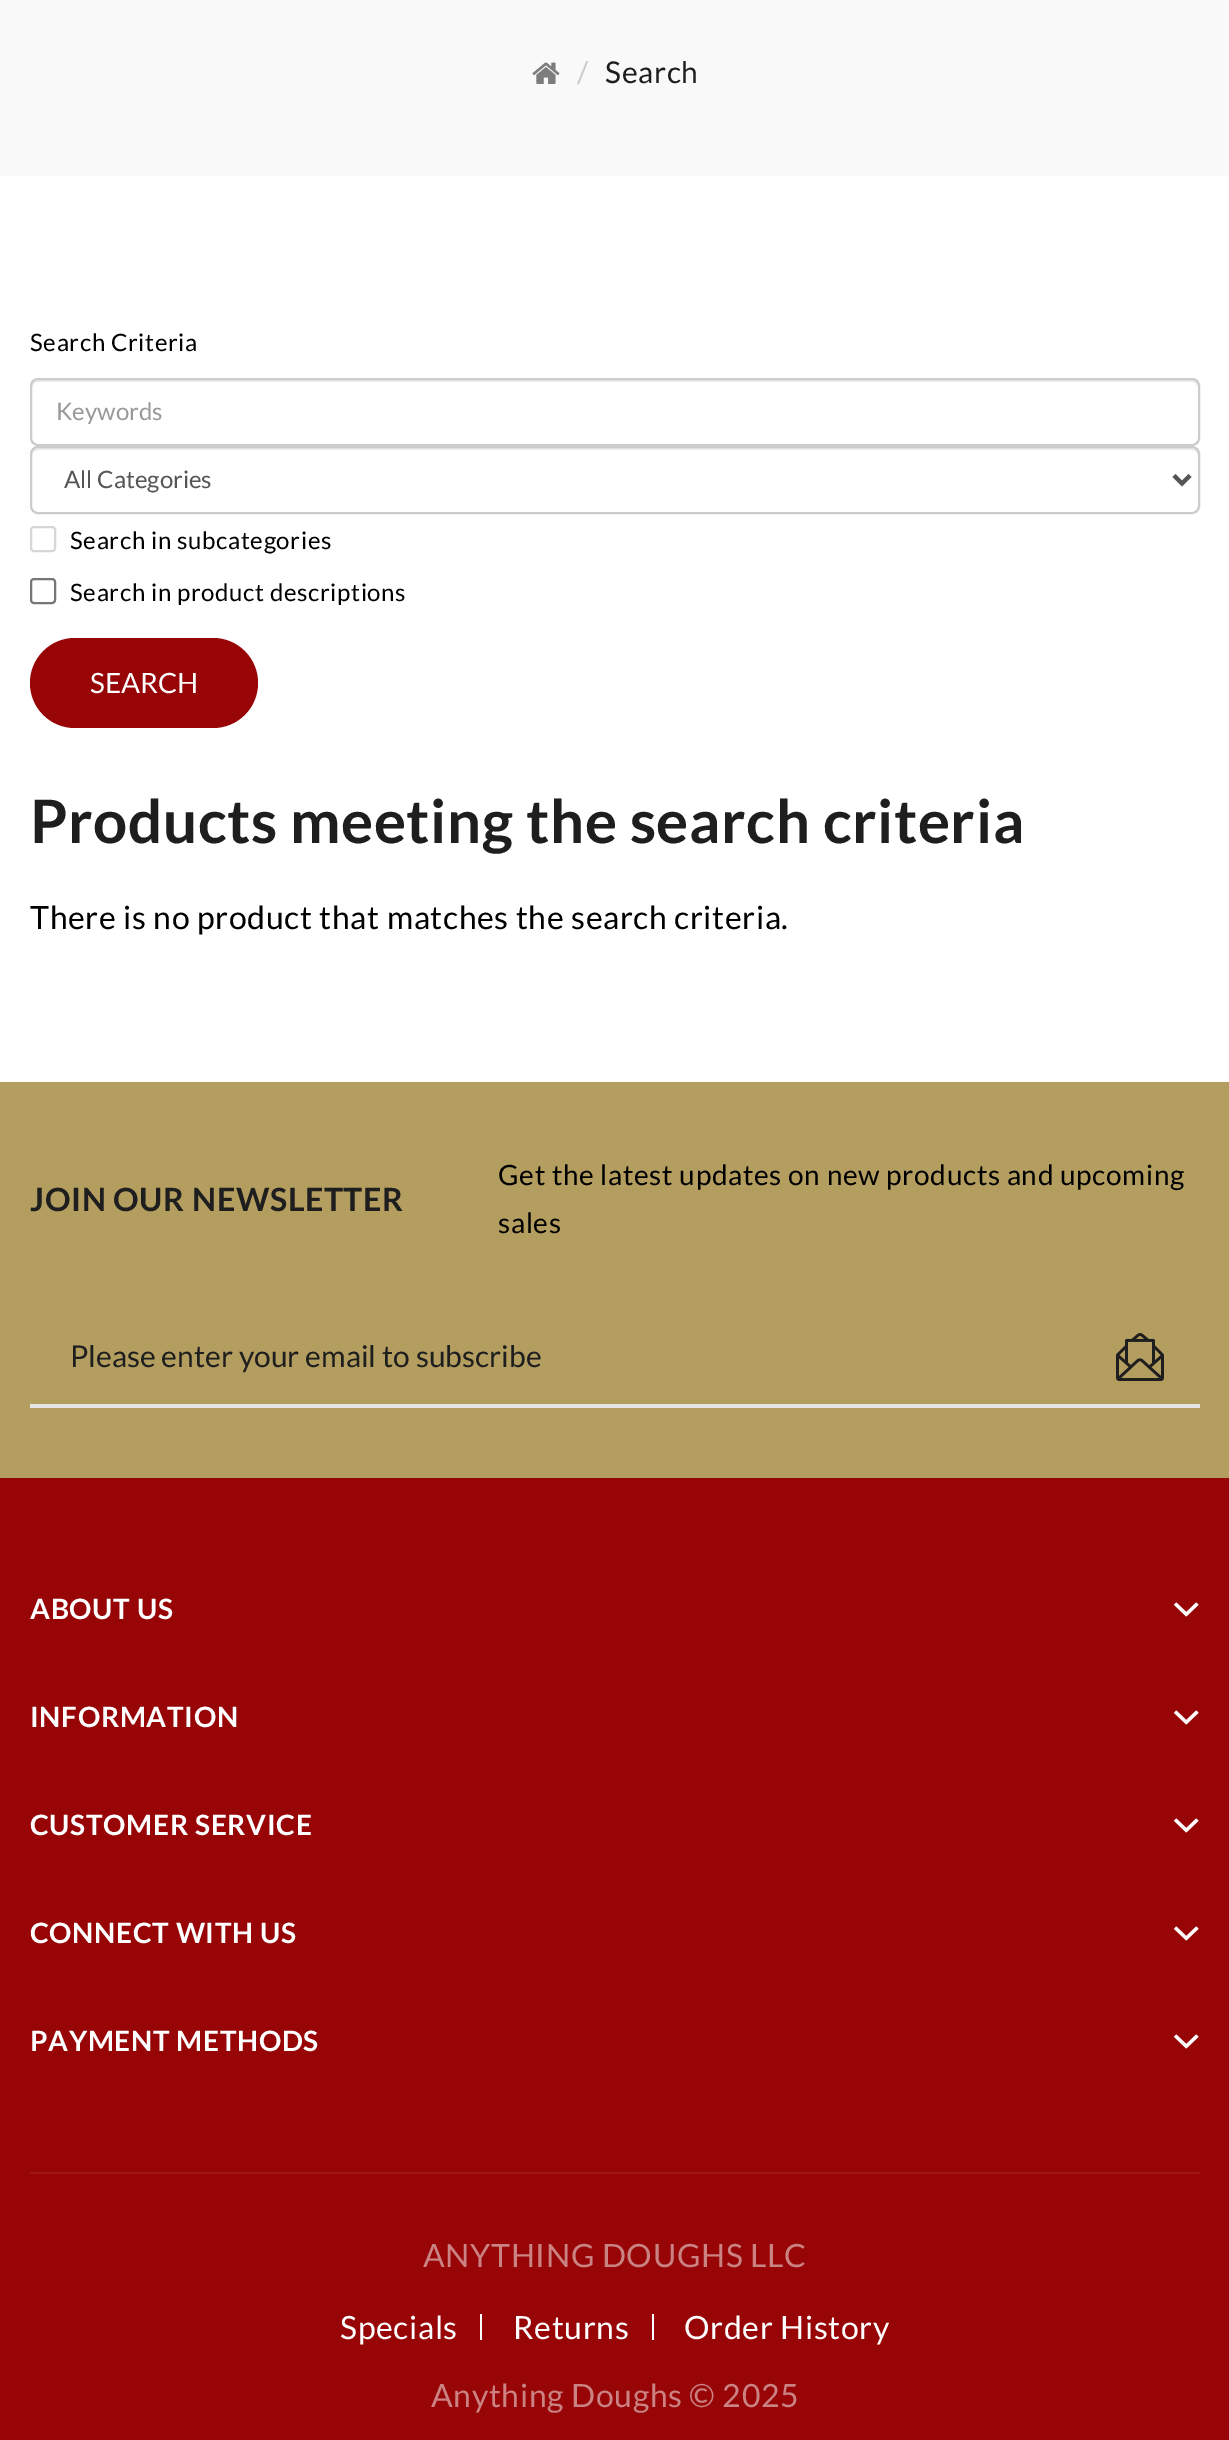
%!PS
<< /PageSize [1229 2440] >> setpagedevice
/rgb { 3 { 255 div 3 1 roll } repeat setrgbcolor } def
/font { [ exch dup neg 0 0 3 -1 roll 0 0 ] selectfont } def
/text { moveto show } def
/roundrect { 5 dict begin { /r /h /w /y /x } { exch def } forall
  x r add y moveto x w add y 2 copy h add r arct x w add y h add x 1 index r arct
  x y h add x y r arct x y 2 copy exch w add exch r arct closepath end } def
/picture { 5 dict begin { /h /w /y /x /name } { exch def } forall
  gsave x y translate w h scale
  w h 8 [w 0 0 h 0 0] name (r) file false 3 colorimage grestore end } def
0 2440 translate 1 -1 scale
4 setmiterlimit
255 255 255 rgb
0 0 1229 2440 rectfill
249 249 249 rgb
0 0 1229 176 rectfill
(img_01.rgb) 532 62 28 22 picture
236 236 236 rgb
38 382 moveto 1154 0 rlineto 3 0 6 3 6 6 rcurveto 0 -2 rlineto 0 -3 -3 -6 -6 -6 rcurveto -1154 0 rlineto -3 0 -6 3 -6 6 rcurveto 0 2 rlineto 0 -3 3 -6 6 -6 rcurveto closepath fill
204 204 204 rgb
2 setlinewidth
31 379 1168 66 7 roundrect stroke
236 236 236 rgb
38 450 moveto 1154 0 rlineto 3 0 6 3 6 6 rcurveto 0 -2 rlineto 0 -3 -3 -6 -6 -6 rcurveto -1154 0 rlineto -3 0 -6 3 -6 6 rcurveto 0 2 rlineto 0 -3 3 -6 6 -6 rcurveto closepath fill
204 204 204 rgb
31 447 1168 66 7 roundrect stroke
85 85 85 rgb
4 setlinewidth
1174 475.5 moveto 8 8 rlineto 8 -8 rlineto stroke
214 214 214 rgb
2 setlinewidth
31 527 24 24 3 roundrect stroke
118 118 118 rgb
31 579 24 24 3 roundrect stroke
151 5 6 rgb
30 638 228 90 45 roundrect fill
0 1478 1229 962 rectfill
180 158 95 rgb
0 1082 1229 396 rectfill
229 229 229 rgb
30 1404 1170 4 rectfill
(img_02.rgb) 1116 1333 48 48 picture
(img_03.rgb) 1174 1602 25 15 picture
(img_03.rgb) 1174 1710 25 15 picture
(img_03.rgb) 1174 1818 25 15 picture
(img_03.rgb) 1174 1926 25 15 picture
(img_03.rgb) 1174 2034 25 15 picture
158 23 23 rgb
30 2172 1170 2 rectfill
255 255 255 rgb
480 2314 2 26 rectfill
652 2314 2 26 rectfill
/Lato-Regular 30 font
204 204 204 rgb
577 83 moveto 0.65 0 (/) ashow
30 30 31 rgb
605 83 moveto 0.65 0 (Search) ashow
/Lato-Regular 24 font
0 0 0 rgb
30 351 moveto 0.65 0 (Search Criteria) ashow
153 153 153 rgb
(Keywords) 56 420 text
85 85 85 rgb
(All Categories) 64 488 text
0 0 0 rgb
70 549 moveto 0.65 0 (Search in subcategories) ashow
70 601 moveto 0.65 0 (Search in product descriptions) ashow
/Lato-Regular 28 font
255 255 255 rgb
(SEARCH) 90 693 text
/Lato-Bold 60 font
30 30 31 rgb
30 843 moveto 0.65 0 (Products meeting the search criteria) ashow
/Lato-Regular 32 font
0 0 0 rgb
30 929 moveto 0.65 0 (There is no product that matches the search criteria.) ashow
/Lato-Bold 32 font
30 30 31 rgb
30 1211 moveto 0.65 0 (JOIN OUR NEWSLETTER) ashow
/Lato-Regular 28 font
0 0 0 rgb
498 1185 moveto 0.65 0 (Get the latest updates on new products and upcoming) ashow
498 1233 moveto 0.65 0 (sales) ashow
/Lato-Regular 30 font
30 30 31 rgb
(Please enter your email to subscribe) 70 1367 text
/Lato-Bold 28 font
255 255 255 rgb
30 1619 moveto 0.65 0 (ABOUT US) ashow
30 1727 moveto 0.65 0 (INFORMATION) ashow
30 1835 moveto 0.65 0 (CUSTOMER SERVICE) ashow
30 1943 moveto 0.65 0 (CONNECT WITH US) ashow
30 2051 moveto 0.65 0 (PAYMENT METHODS) ashow
/Lato-Regular 32 font
203 130 131 rgb
423 2267 moveto 0.65 0 (ANYTHING DOUGHS LLC) ashow
255 255 255 rgb
340 2339 moveto 0.65 0 (Specials) ashow
513 2339 moveto 0.65 0 (Returns) ashow
684 2339 moveto 0.65 0 (Order History) ashow
203 130 131 rgb
431 2407 moveto 0.65 0 (Anything Doughs © 2025) ashow
showpage
